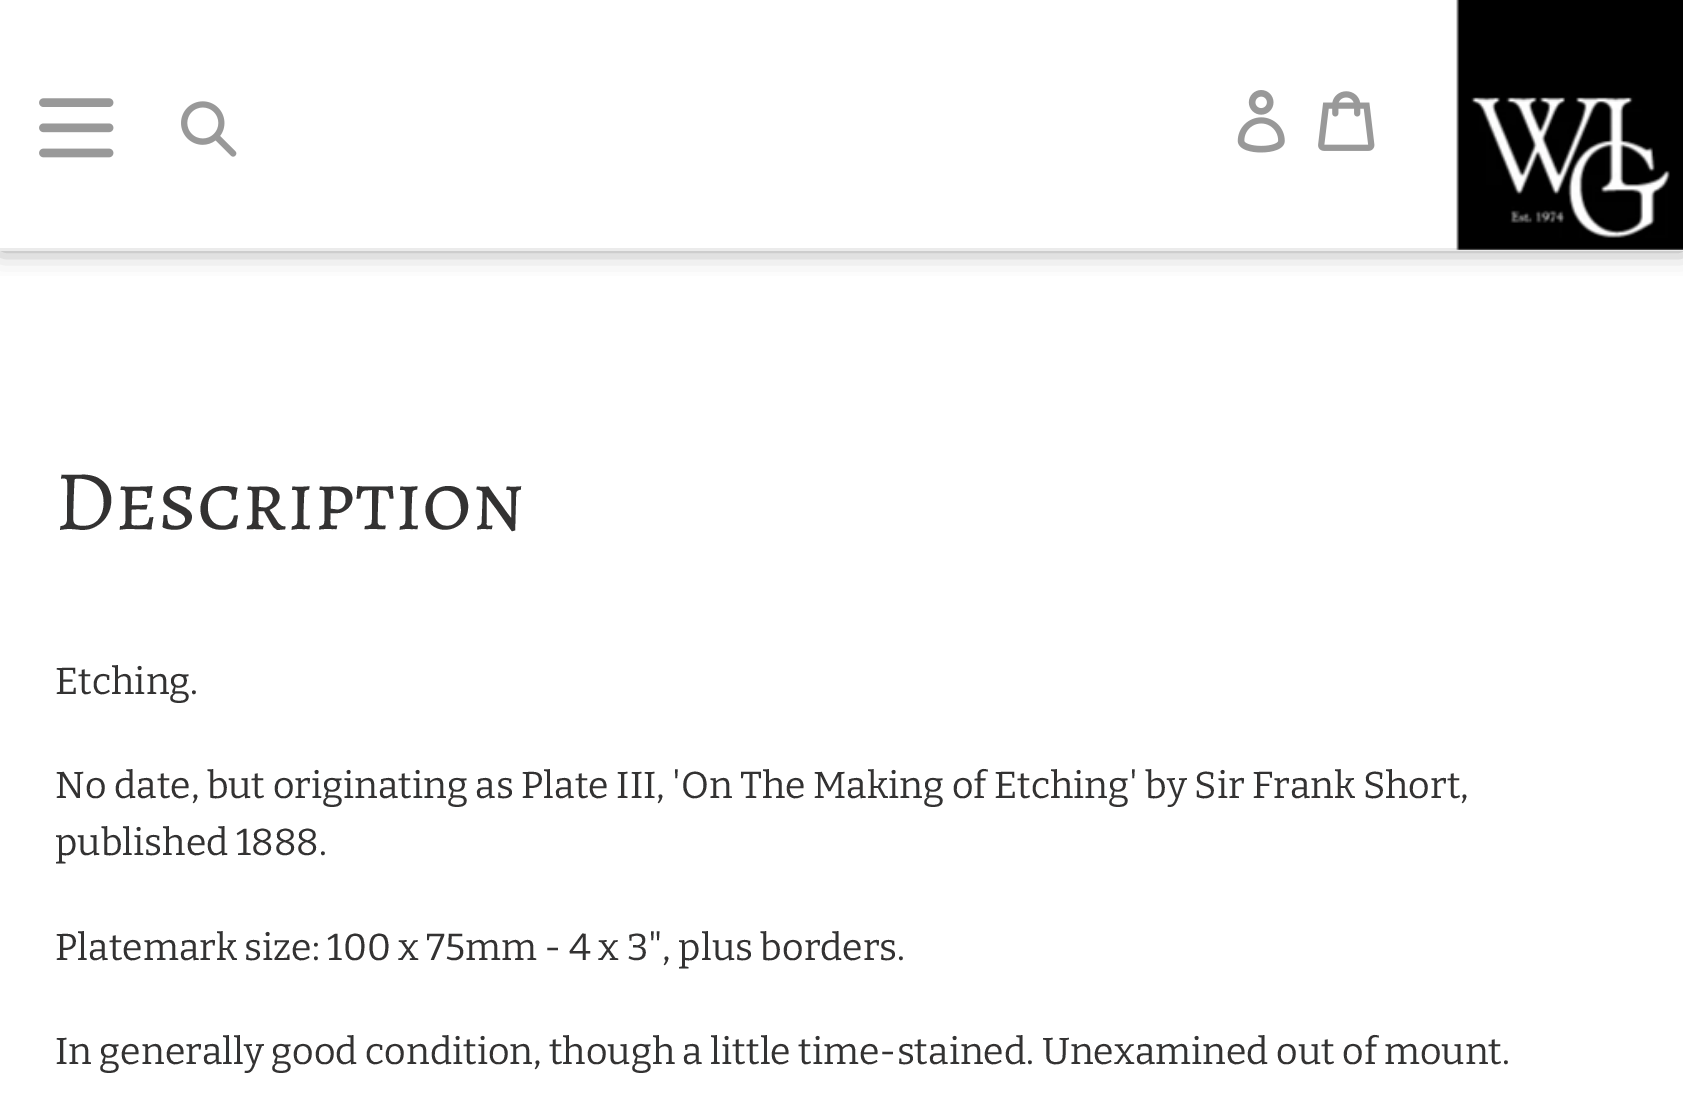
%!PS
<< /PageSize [1683 1098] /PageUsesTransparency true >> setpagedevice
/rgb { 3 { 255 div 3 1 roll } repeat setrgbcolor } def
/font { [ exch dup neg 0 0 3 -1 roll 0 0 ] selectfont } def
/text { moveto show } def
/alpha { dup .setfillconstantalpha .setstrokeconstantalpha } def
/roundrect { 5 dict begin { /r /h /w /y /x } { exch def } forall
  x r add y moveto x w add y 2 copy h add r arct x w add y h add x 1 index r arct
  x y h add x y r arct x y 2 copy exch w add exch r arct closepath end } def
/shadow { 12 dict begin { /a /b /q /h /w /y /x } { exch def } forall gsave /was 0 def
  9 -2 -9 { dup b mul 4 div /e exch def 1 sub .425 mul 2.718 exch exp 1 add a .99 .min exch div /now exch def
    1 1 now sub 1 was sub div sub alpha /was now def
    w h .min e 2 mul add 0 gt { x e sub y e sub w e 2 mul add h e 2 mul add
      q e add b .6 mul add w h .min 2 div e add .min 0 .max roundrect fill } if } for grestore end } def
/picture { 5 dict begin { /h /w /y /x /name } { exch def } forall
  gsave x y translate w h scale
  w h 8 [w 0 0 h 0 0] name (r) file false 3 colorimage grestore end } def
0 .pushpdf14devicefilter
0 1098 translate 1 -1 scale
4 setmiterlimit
255 255 255 rgb
0 0 1683 1098 rectfill
gsave
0 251 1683 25 rectclip
153 153 153 rgb
0 0 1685 250 0 12.5 1 shadow
grestore
235 235 235 rgb
0 248 1683 3 rectfill
(img_01.rgb) 39 98 75 60 picture
(img_02.rgb) 181 101 56 56 picture
(img_03.rgb) 1237 90 48 63 picture
(img_04.rgb) 1318 91 57 60 picture
(img_05.rgb) 1456 0 227 250 picture
/AlegreyaSC-Regular 85 font
51 50 50 rgb
(Description) 55 529 text
/Bitter-Regular 37.5 font
(Etching.) 55 694 text
(No date, but originating as Plate III, 'On The Making of Etching' by Sir Frank Short,) 55 798 text
(published 1888.) 55 855 text
(Platemark size: 100 x 75mm - 4 x 3", plus borders.) 55 960 text
(In generally good condition, though a little time-stained. Unexamined out of mount.) 55 1064 text
.poppdf14devicefilter showpage
